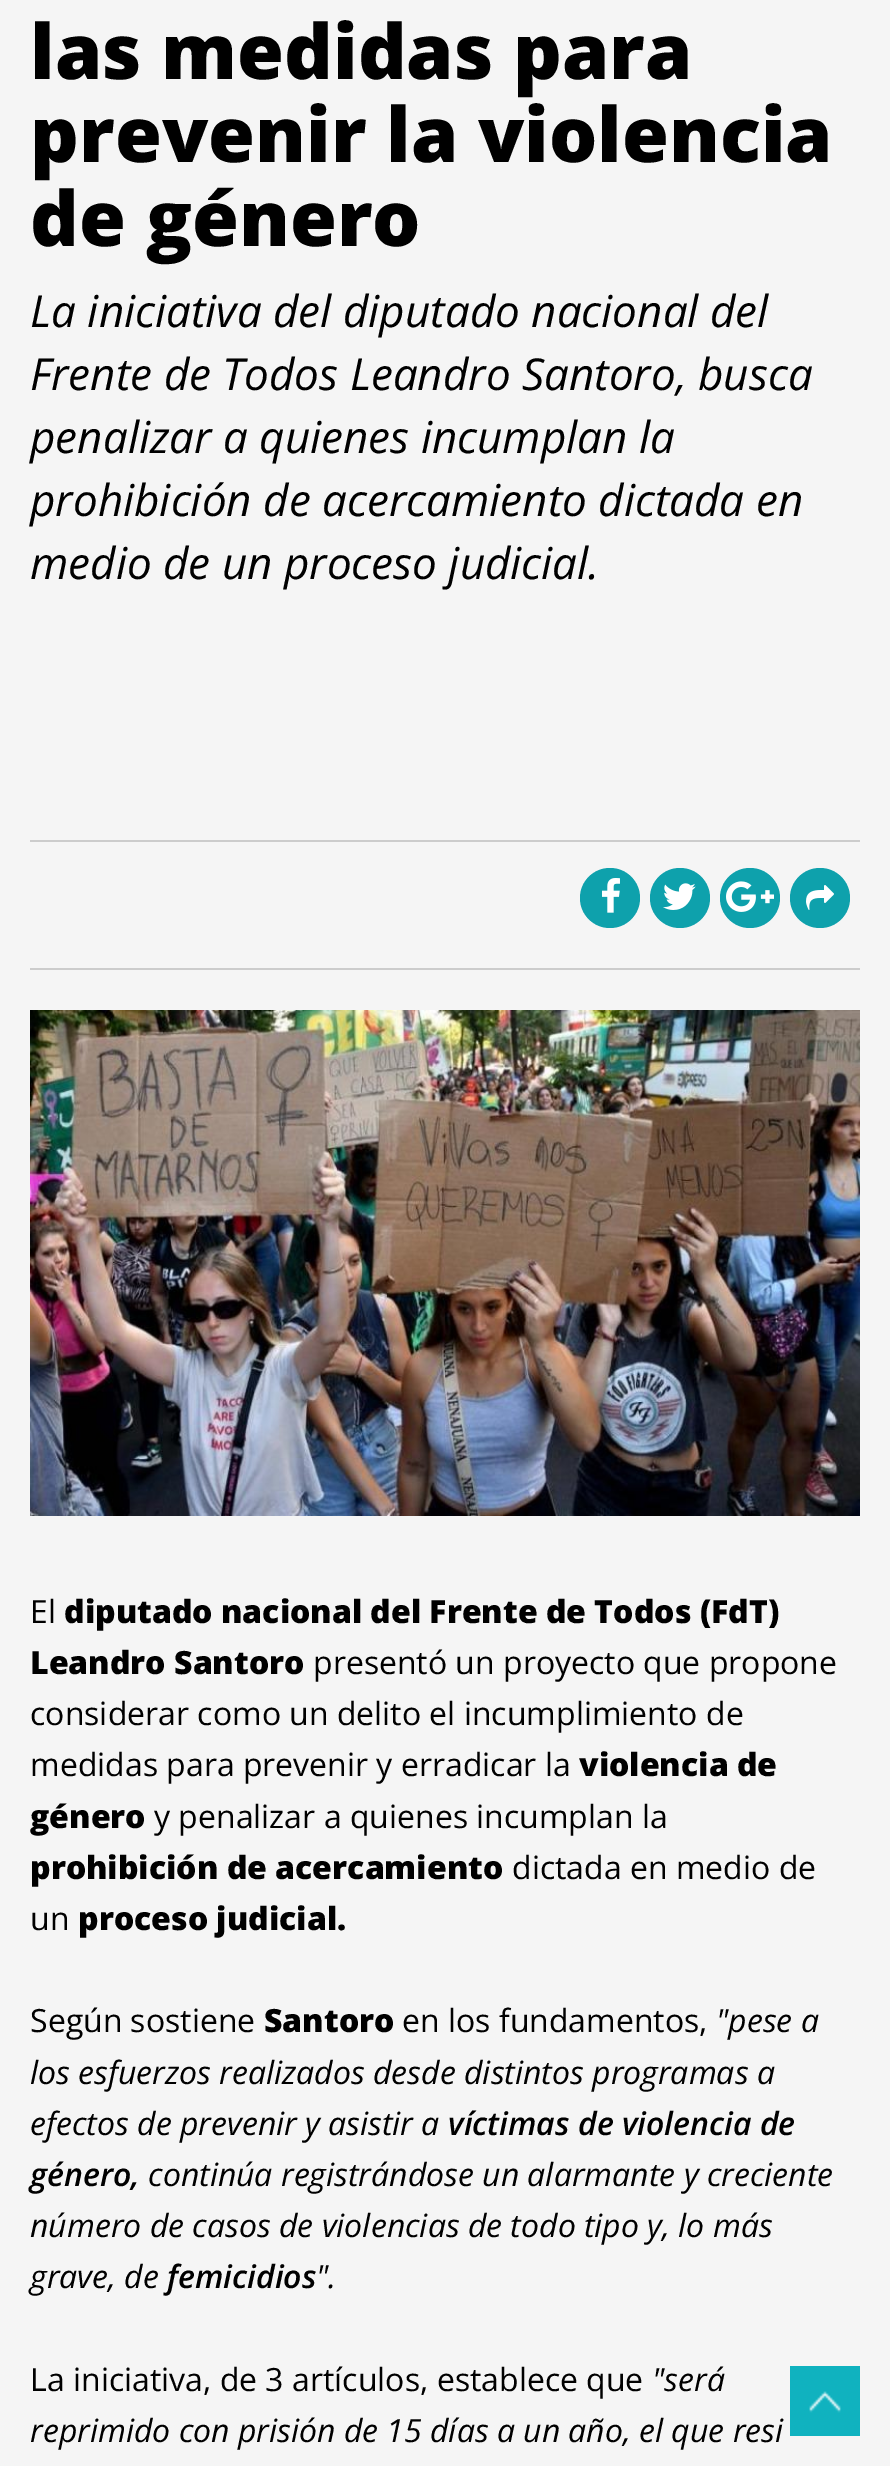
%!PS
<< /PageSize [890 2466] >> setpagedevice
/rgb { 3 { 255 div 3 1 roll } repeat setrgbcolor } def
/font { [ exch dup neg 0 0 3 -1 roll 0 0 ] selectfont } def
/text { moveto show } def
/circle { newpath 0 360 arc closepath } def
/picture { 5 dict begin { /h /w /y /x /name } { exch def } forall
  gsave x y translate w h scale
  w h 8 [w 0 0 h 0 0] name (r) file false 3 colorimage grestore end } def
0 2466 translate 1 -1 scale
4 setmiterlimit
245 245 245 rgb
0 0 890 2466 rectfill
204 204 204 rgb
30 840 830 2 rectfill
30 968 830 2 rectfill
14 161 172 rgb
610 898 30 circle fill
(img_01.rgb) 602 878 18 35 picture
680 898 30 circle fill
(img_02.rgb) 663 883 33 27 picture
750 898 30 circle fill
(img_03.rgb) 726 881 48 31 picture
820 898 30 circle fill
(img_04.rgb) 806 885 28 25 picture
(img_05.rgb) 30 1010 830 506 picture
16 178 191 rgb
790 2366 70 70 rectfill
(img_06.rgb) 809 2391 32 22 picture
/OpenSans-ExtraBold 76 font
0 0 0 rgb
(las medidas para) 30 79 text
(prevenir la violencia) 30 162 text
(de género) 30 246 text
/OpenSans-Italic 44 font
(La iniciativa del diputado nacional del) 30 327 text
(Frente de Todos Leandro Santoro, busca) 30 390 text
(penalizar a quienes incumplan la) 30 453 text
(prohibición de acercamiento dictada en) 30 516 text
(medio de un proceso judicial.) 30 579 text
/OpenSans-Regular 32 font
(El) 30 1623 text
/OpenSans-ExtraBold 32 font
(diputado nacional del Frente de Todos \(FdT\)) 64 1623 text
(Leandro Santoro) 30 1674 text
/OpenSans-Regular 32 font
(presentó un proyecto que propone) 313 1674 text
(considerar como un delito el incumplimiento de) 30 1725 text
(medidas para prevenir y erradicar la) 30 1776 text
/OpenSans-ExtraBold 32 font
(violencia de) 579 1776 text
(género) 30 1828 text
/OpenSans-Regular 32 font
(y penalizar a quienes incumplan la) 154 1828 text
/OpenSans-ExtraBold 32 font
(prohibición de acercamiento) 30 1879 text
/OpenSans-Regular 32 font
(dictada en medio de) 512 1879 text
(un) 30 1930 text
/OpenSans-ExtraBold 32 font
(proceso judicial.) 78 1930 text
/OpenSans-Regular 32 font
(Según sostiene) 30 2032 text
/OpenSans-ExtraBold 32 font
(Santoro) 264 2032 text
/OpenSans-Regular 32 font
(en los fundamentos,) 402 2032 text
/OpenSans-Italic 32 font
("pese a) 716 2032 text
(los esfuerzos realizados desde distintos programas a) 30 2084 text
(efectos de prevenir y asistir a) 30 2135 text
/OpenSans-SemiBoldItalic 32 font
(víctimas de violencia de) 448 2135 text
(género,) 30 2186 text
/OpenSans-Italic 32 font
(continúa registrándose un alarmante y creciente) 148 2186 text
(número de casos de violencias de todo tipo y, lo más) 30 2237 text
(grave, de) 30 2288 text
/OpenSans-SemiBoldItalic 32 font
(femicidios) 167 2288 text
/OpenSans-Italic 32 font
(".) 316 2288 text
/OpenSans-Regular 32 font
(La iniciativa, de 3 artículos, establece que) 30 2391 text
/OpenSans-Italic 32 font
("será) 652 2391 text
(reprimido con prisión de 15 días a un año, el que resi) 30 2442 text
showpage
